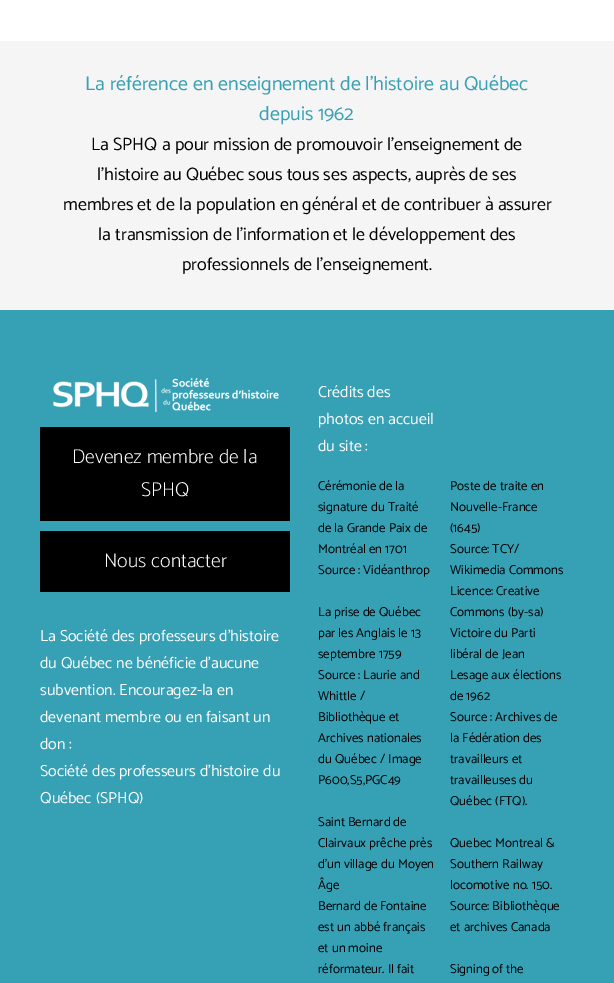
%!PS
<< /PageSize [614 983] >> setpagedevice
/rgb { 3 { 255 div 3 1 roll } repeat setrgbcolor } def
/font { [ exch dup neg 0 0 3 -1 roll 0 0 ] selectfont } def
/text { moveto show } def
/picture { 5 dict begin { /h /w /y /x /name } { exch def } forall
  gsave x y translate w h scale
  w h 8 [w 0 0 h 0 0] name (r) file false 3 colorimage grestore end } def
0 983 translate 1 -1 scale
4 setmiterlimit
255 255 255 rgb
0 0 614 983 rectfill
54 160 181 rgb
0 310 614 673 rectfill
245 245 245 rgb
0 41 614 269 rectfill
(img_01.rgb) 53 378 226 35 picture
0 0 0 rgb
40 427 250 94 rectfill
40 531 250 61 rectfill
/Catamaran-Regular 20 font
54 160 181 rgb
(La référence en enseignement de l'histoire au Québec) 85 90 text
(depuis 1962) 259 120 text
/Catamaran-Regular 18 font
0 0 0 rgb
(La SPHQ a pour mission de promouvoir l’enseignement de) 91 150 text
(l’histoire au Québec sous tous ses aspects, auprès de ses) 97 180 text
(membres et de la population en général et de contribuer à assurer) 63 210 text
(la transmission de l’information et le développement des) 98 240 text
(professionnels de l’enseignement.) 182 270 text
/Catamaran-ExtraLight 20 font
255 255 255 rgb
(Devenez membre de la) 72 463 text
(SPHQ) 141 496 text
(Nous contacter) 104 567 text
/Catamaran-Regular 16 font
(La Société des professeurs d'histoire) 40 641 text
(du Québec ne bénéficie d’aucune) 40 668 text
(subvention. Encouragez-la en) 40 695 text
(devenant membre ou en faisant un) 40 722 text
(don :) 40 749 text
(Société des professeurs d’histoire du) 40 776 text
(Québec \(SPHQ\)) 40 803 text
(Crédits des) 318 397 text
(photos en accueil) 318 424 text
(du site :) 318 451 text
/Catamaran-Regular 13 font
0 0 0 rgb
(Cérémonie de la) 318 490 text
(signature du Traité) 318 511 text
(de la Grande Paix de) 318 532 text
(Montréal en 1701) 318 553 text
(Source : Vidéanthrop) 318 574 text
(La prise de Québec) 318 616 text
(par les Anglais le 13) 318 637 text
(septembre 1759) 318 658 text
(Source : Laurie and) 318 679 text
(Whittle /) 318 700 text
(Bibliothèque et) 318 721 text
(Archives nationales) 318 742 text
(du Québec / Image) 318 763 text
(P600,S5,PGC49) 318 784 text
(Saint Bernard de) 318 826 text
(Clairvaux prêche près) 318 847 text
(d'un village du Moyen) 318 868 text
(Âge) 318 889 text
(Bernard de Fontaine) 318 910 text
(est un abbé français) 318 931 text
(et un moine) 318 952 text
(réformateur. Il fait) 318 973 text
(Poste de traite en) 450 490 text
(Nouvelle-France) 450 511 text
(\(1645\)) 450 532 text
(Source: TCY/) 450 553 text
(Wikimedia Commons) 450 574 text
(Licence: Creative) 450 595 text
(Commons \(by-sa\)) 450 616 text
(Victoire du Parti) 450 637 text
(libéral de Jean) 450 658 text
(Lesage aux élections) 450 679 text
(de 1962) 450 700 text
(Source : Archives de) 450 721 text
(la Fédération des) 450 742 text
(travailleurs et) 450 763 text
(travailleuses du) 450 784 text
(Québec \(FTQ\).) 450 805 text
(Quebec Montreal &) 450 847 text
(Southern Railway) 450 868 text
(locomotive no. 150.) 450 889 text
(Source: Bibliothèque) 450 910 text
(et archives Canada) 450 931 text
(Signing of the) 450 973 text
showpage
